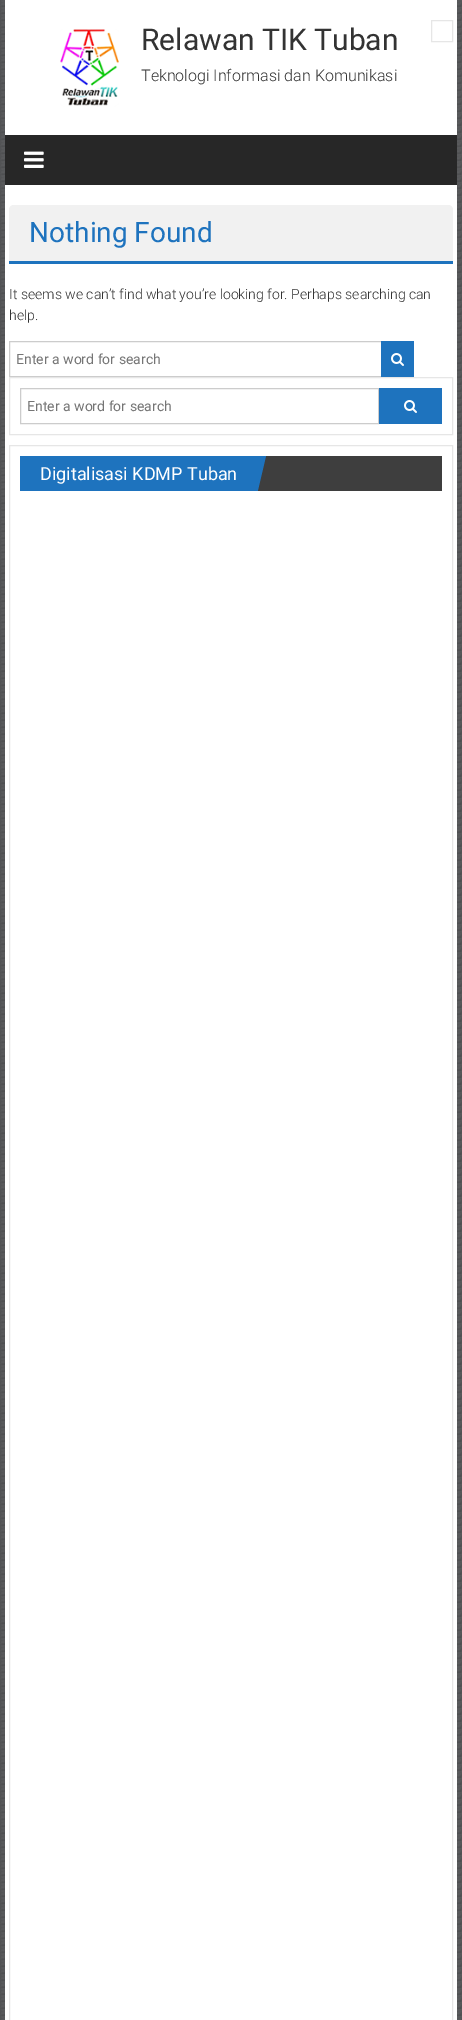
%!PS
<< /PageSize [462 2020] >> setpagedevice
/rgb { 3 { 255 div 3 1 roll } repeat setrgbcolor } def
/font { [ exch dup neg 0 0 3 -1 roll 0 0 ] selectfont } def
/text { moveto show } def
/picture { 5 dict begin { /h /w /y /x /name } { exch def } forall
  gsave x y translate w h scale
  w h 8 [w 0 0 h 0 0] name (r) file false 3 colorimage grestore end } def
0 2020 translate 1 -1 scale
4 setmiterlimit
255 255 255 rgb
0 0 462 2020 rectfill
(img_01.rgb) 0 0 462 2020 picture
5 0 452 2020 rectfill
(img_02.rgb) 60 29 59 78 picture
230 230 230 rgb
431.5 20.5 21 21 rectstroke
39 39 39 rgb
5 135 452 50 rectfill
(img_03.rgb) 24 151 20 17 picture
241 241 241 rgb
14 205 moveto 434 0 rlineto 3 0 5 2 5 5 rcurveto 0 54 rlineto -444 0 rlineto 0 -54 rlineto 0 -3 2 -5 5 -5 rcurveto closepath fill
30 115 190 rgb
9 261 444 3 rectfill
204 204 204 rgb
9.5 341.5 372 35 rectstroke
30 115 190 rgb
381 341 33 36 rectfill
(img_04.rgb) 391 353 13 13 picture
230 230 230 rgb
9.5 377.5 443 57 rectstroke
204 204 204 rgb
20.5 388.5 358 35 rectstroke
30 115 190 rgb
379 388 63 36 rectfill
(img_04.rgb) 404 400 13 13 picture
230 230 230 rgb
9.5 445.5 443 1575 rectstroke
62 62 62 rgb
258 456 184 35 rectfill
30 115 190 rgb
20 456 238 35 rectfill
gsave
20 456 422 35 rectclip
266 456 moveto -8 34 rlineto -34 -8 rlineto 8 -34 rlineto closepath fill
grestore
/Roboto-Regular 30 font
51 51 51 rgb
(Relawan TIK Tuban) 141 50 text
/Roboto-Light 16 font
(Teknologi Informasi dan Komunikasi) 141 81 text
/Roboto-Regular 28 font
30 115 190 rgb
(Nothing Found) 29 242 text
/Roboto-Light 14 font
51 51 51 rgb
(It seems we can’t find what you’re looking for. Perhaps searching can) 9 299 text
(help.) 9 320 text
/Roboto-Regular 14 font
117 117 117 rgb
(Enter a word for search) 16 364 text
(Enter a word for search) 27 411 text
/Roboto-Regular 18 font
255 255 255 rgb
(Digitalisasi KDMP Tuban) 40 480 text
showpage
